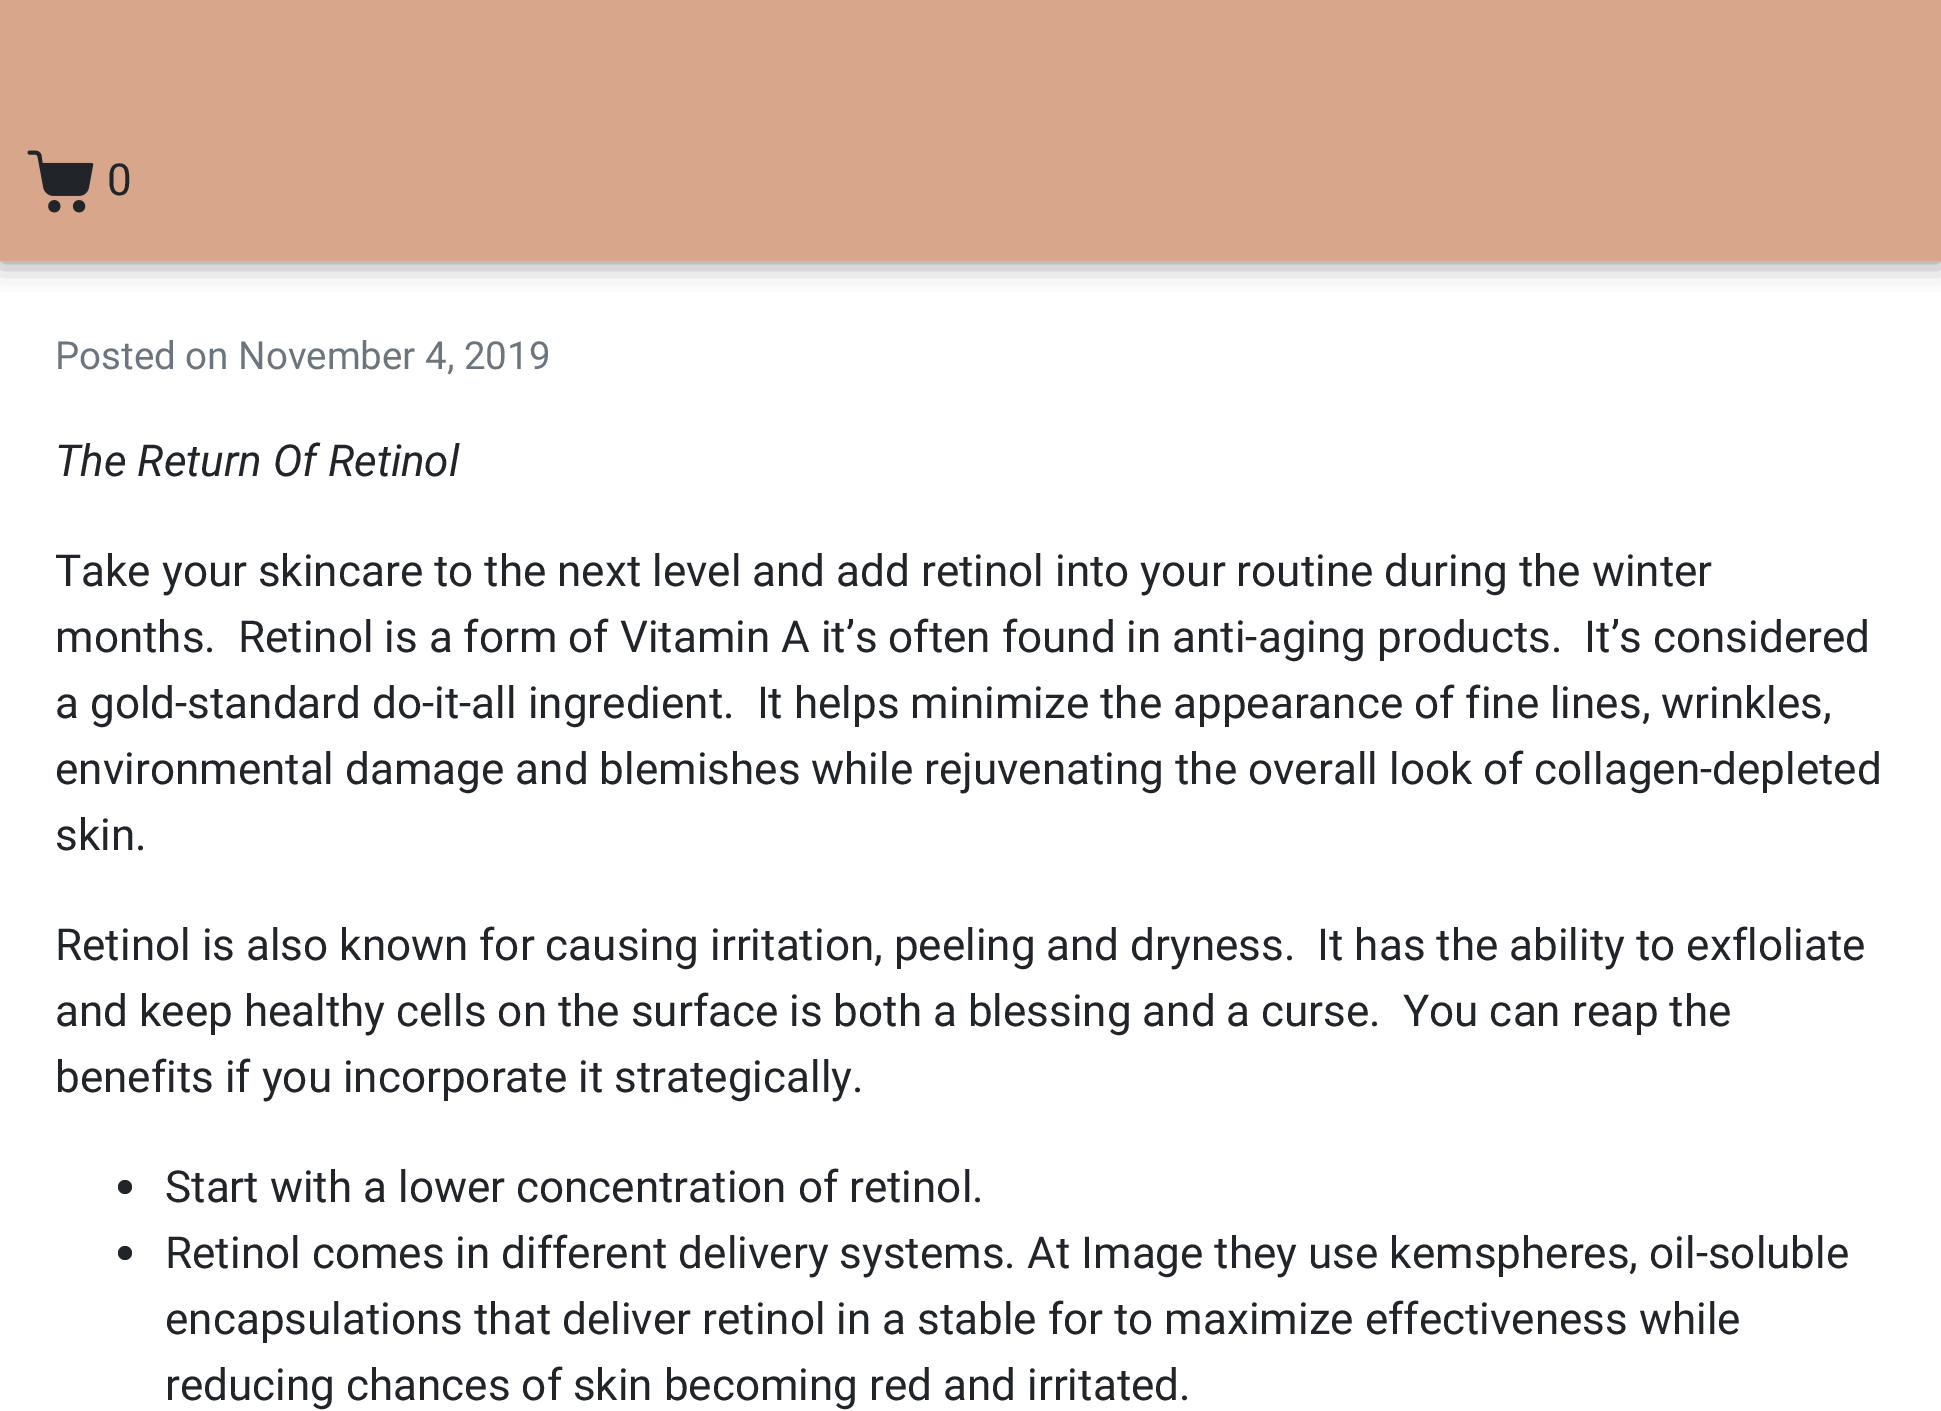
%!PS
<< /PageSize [1941 1411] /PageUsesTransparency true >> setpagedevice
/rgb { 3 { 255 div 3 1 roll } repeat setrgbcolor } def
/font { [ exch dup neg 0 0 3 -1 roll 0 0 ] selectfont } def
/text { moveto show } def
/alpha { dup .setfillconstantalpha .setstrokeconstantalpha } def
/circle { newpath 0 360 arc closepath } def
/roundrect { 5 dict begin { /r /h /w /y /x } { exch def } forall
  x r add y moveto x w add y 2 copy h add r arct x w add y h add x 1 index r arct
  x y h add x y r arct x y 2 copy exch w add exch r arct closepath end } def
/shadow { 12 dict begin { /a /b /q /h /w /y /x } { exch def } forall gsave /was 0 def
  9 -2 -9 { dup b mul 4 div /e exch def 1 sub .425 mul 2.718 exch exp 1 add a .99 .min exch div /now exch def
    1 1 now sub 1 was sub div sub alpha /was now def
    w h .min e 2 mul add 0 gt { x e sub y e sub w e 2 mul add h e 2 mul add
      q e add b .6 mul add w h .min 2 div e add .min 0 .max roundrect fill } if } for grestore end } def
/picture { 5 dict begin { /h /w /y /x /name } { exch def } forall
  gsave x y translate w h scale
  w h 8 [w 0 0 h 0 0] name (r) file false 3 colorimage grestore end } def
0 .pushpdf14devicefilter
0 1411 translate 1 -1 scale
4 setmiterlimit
255 255 255 rgb
0 0 1941 1411 rectfill
0 0 0 rgb
0 0 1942 261 0 14 0.5 shadow
216 166 138 rgb
0 0 1941 261 rectfill
(img_01.rgb) 27 150 67 63 picture
33 37 41 rgb
125 1187 7 circle fill
125 1253 7 circle fill
/Roboto-Regular 44 font
(0) 107 195 text
/Roboto-Regular 38.5 font
108 117 125 rgb
(Posted on November 4, 2019) 55 369 text
/Roboto-Italic 44 font
33 37 41 rgb
(The Return Of Retinol) 55 476 text
/Roboto-Regular 44 font
(Take your skincare to the next level and add retinol into your routine during the winter) 55 586 text
(months.  Retinol is a form of Vitamin A it’s often found in anti-aging products.  It’s considered) 55 652 text
(a gold-standard do-it-all ingredient.  It helps minimize the appearance of fine lines, wrinkles,) 55 718 text
(environmental damage and blemishes while rejuvenating the overall look of collagen-depleted) 55 784 text
(skin.) 55 850 text
(Retinol is also known for causing irritation, peeling and dryness.  It has the ability to exfloliate) 55 960 text
(and keep healthy cells on the surface is both a blessing and a curse.  You can reap the) 55 1026 text
(benefits if you incorporate it strategically.) 55 1092 text
(Start with a lower concentration of retinol.) 165 1202 text
(Retinol comes in different delivery systems. At Image they use kemspheres, oil-soluble) 165 1268 text
(encapsulations that deliver retinol in a stable for to maximize effectiveness while) 165 1334 text
(reducing chances of skin becoming red and irritated.) 165 1400 text
.poppdf14devicefilter showpage
